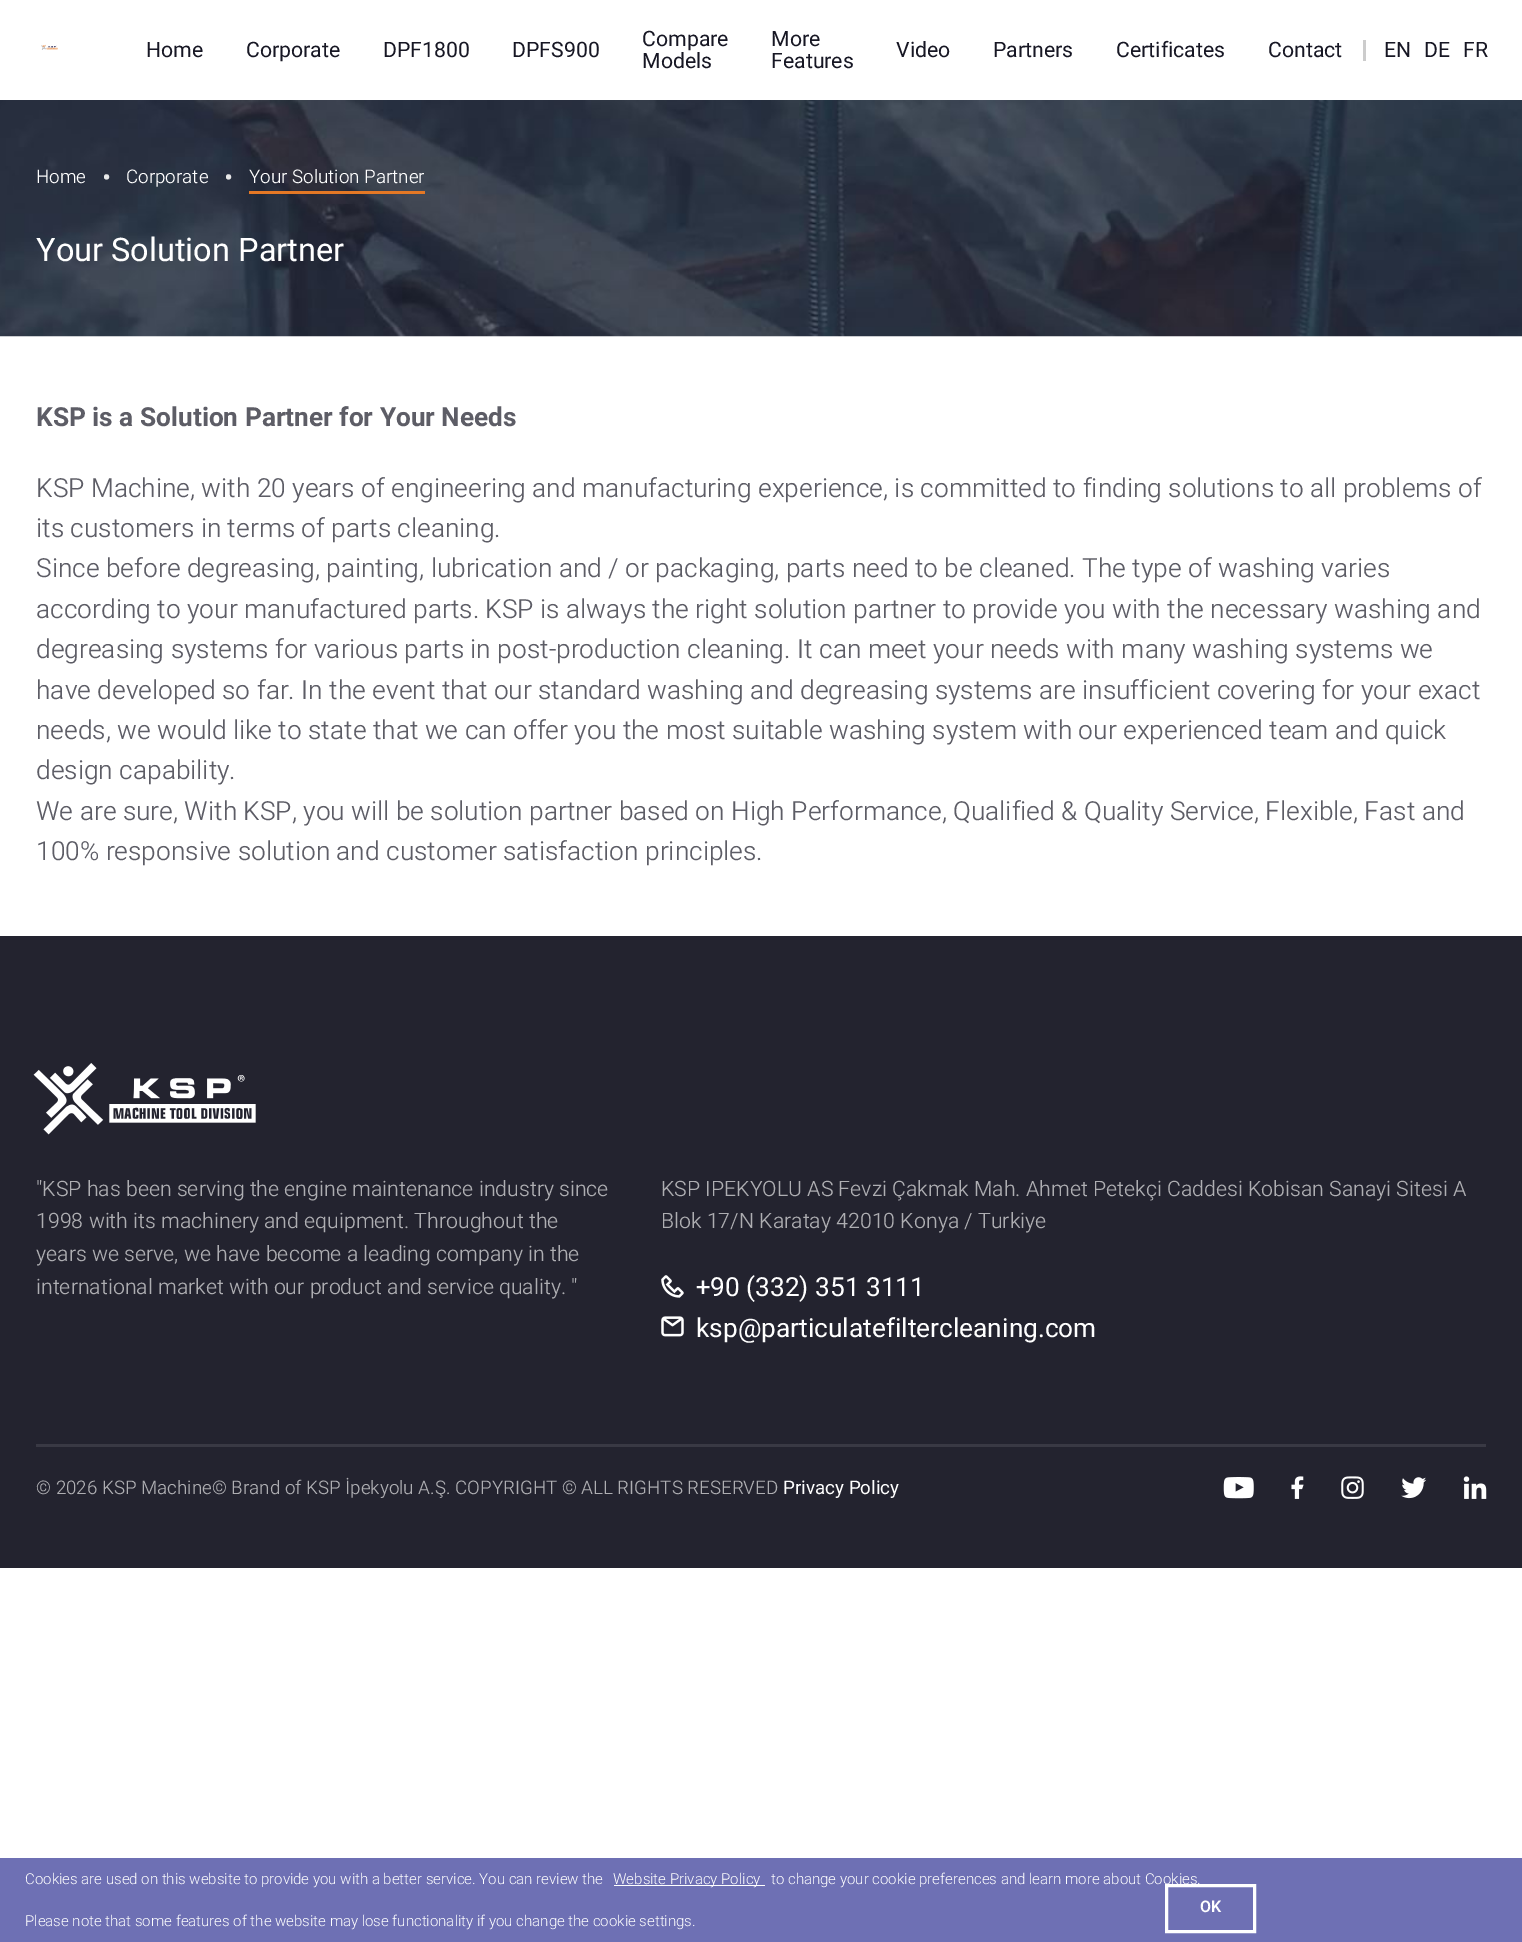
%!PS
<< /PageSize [1522 1942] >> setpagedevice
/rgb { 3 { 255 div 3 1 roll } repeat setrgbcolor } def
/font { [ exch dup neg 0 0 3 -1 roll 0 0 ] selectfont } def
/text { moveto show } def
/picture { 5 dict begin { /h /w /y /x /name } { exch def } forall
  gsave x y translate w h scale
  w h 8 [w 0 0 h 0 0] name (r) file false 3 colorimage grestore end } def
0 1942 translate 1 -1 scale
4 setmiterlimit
255 255 255 rgb
0 0 1522 1942 rectfill
(img_01.rgb) 41 44 17 6 picture
204 204 204 rgb
1363 40 3 21 rectfill
(img_02.rgb) 0 100 1522 237 picture
228 120 37 rgb
249 191 176 3 rectfill
35 35 47 rgb
0 936 1522 632 rectfill
(img_03.rgb) 33 1063 223 72 picture
(img_04.rgb) 661 1275 23 23 picture
(img_05.rgb) 661 1316 23 21 picture
57 57 68 rgb
36 1444 1450 3 rectfill
(img_06.rgb) 1223 1477 31 22 picture
(img_07.rgb) 1291 1476 13 23 picture
(img_08.rgb) 1341 1476 23 23 picture
(img_09.rgb) 1401 1477 26 22 picture
(img_10.rgb) 1463 1476 24 23 picture
110 112 180 rgb
0 1858 1522 84 rectfill
255 255 255 rgb
614 1885 151 1 rectfill
3 setlinewidth
1166.5 1885.5 88 46 rectstroke
/Heebo-Regular 21.25 font
23 23 36 rgb
(Home) 146 57 text
(Corporate) 246 57 text
(DPF1800) 383 57 text
(DPFS900) 512 57 text
(Compare) 642 46 text
(Models) 642 68 text
(More) 771 46 text
(Features) 771 68 text
(Video) 896 57 text
(Partners) 993 57 text
(Certificates) 1116 57 text
(Contact) 1268 57 text
(EN) 1384 57 text
(DE) 1424 57 text
(FR) 1463 57 text
/Heebo-Light 18.75 font
255 255 255 rgb
(Home) 36 183 text
/Heebo-Light 28 font
232 232 233 rgb
(•) 102 187 text
/Heebo-Light 18.75 font
255 255 255 rgb
(Corporate) 126 183 text
/Heebo-Light 28 font
232 232 233 rgb
(•) 224 187 text
/Heebo-Light 18.75 font
255 255 255 rgb
(Your Solution Partner) 249 183 text
/Heebo-Regular 32.5 font
(Your Solution Partner) 36 261 text
/Heebo-Bold 26.25 font
93 93 102 rgb
(KSP is a Solution Partner for Your Needs) 36 426 text
/Heebo-Light 26.25 font
(KSP Machine, with 20 years of engineering and manufacturing experience, is committed to finding solutions to all problems of) 36 497 text
(its customers in terms of parts cleaning.) 36 537 text
(Since before degreasing, painting, lubrication and / or packaging, parts need to be cleaned. The type of washing varies) 36 577 text
(according to your manufactured parts. KSP is always the right solution partner to provide you with the necessary washing and) 36 618 text
(degreasing systems for various parts in post-production cleaning. It can meet your needs with many washing systems we) 36 658 text
(have developed so far. In the event that our standard washing and degreasing systems are insufficient covering for your exact) 36 699 text
(needs, we would like to state that we can offer you the most suitable washing system with our experienced team and quick) 36 739 text
(design capability.) 36 779 text
(We are sure, With KSP, you will be solution partner based on High Performance, Qualified & Quality Service, Flexible, Fast and) 36 820 text
(100% responsive solution and customer satisfaction principles.) 36 860 text
/Heebo-Light 21.25 font
174 174 178 rgb
("KSP has been serving the engine maintenance industry since) 36 1196 text
(1998 with its machinery and equipment. Throughout the) 36 1228 text
(years we serve, we have become a leading company in the) 36 1261 text
(international market with our product and service quality. ") 36 1294 text
(KSP IPEKYOLU AS Fevzi Çakmak Mah. Ahmet Petekçi Caddesi Kobisan Sanayi Sitesi A) 661 1196 text
(Blok 17/N Karatay 42010 Konya / Turkiye) 661 1228 text
/Heebo-Regular 26.25 font
255 255 255 rgb
(+90 \(332\) 351 3111) 696 1296 text
(ksp@particulatefiltercleaning.com) 696 1337 text
/Heebo-Light 18.75 font
174 174 178 rgb
(© 2026 KSP Machine© Brand of KSP İpekyolu A.Ş. COPYRIGHT © ALL RIGHTS RESERVED) 36 1494 text
/Heebo-Regular 18.75 font
255 255 255 rgb
(Privacy Policy) 783 1494 text
/Roboto-Light 15 font
(Cookies are used on this website to provide you with a better service. You can review the) 25 1884 text
(Website Privacy Policy) 613 1884 text
(to change your cookie preferences and learn more about Cookies.) 771 1884 text
(Please note that some features of the website may lose functionality if you change the cookie settings.) 25 1926 text
/Roboto-SemiBold 16 font
(OK) 1200 1912 text
showpage
